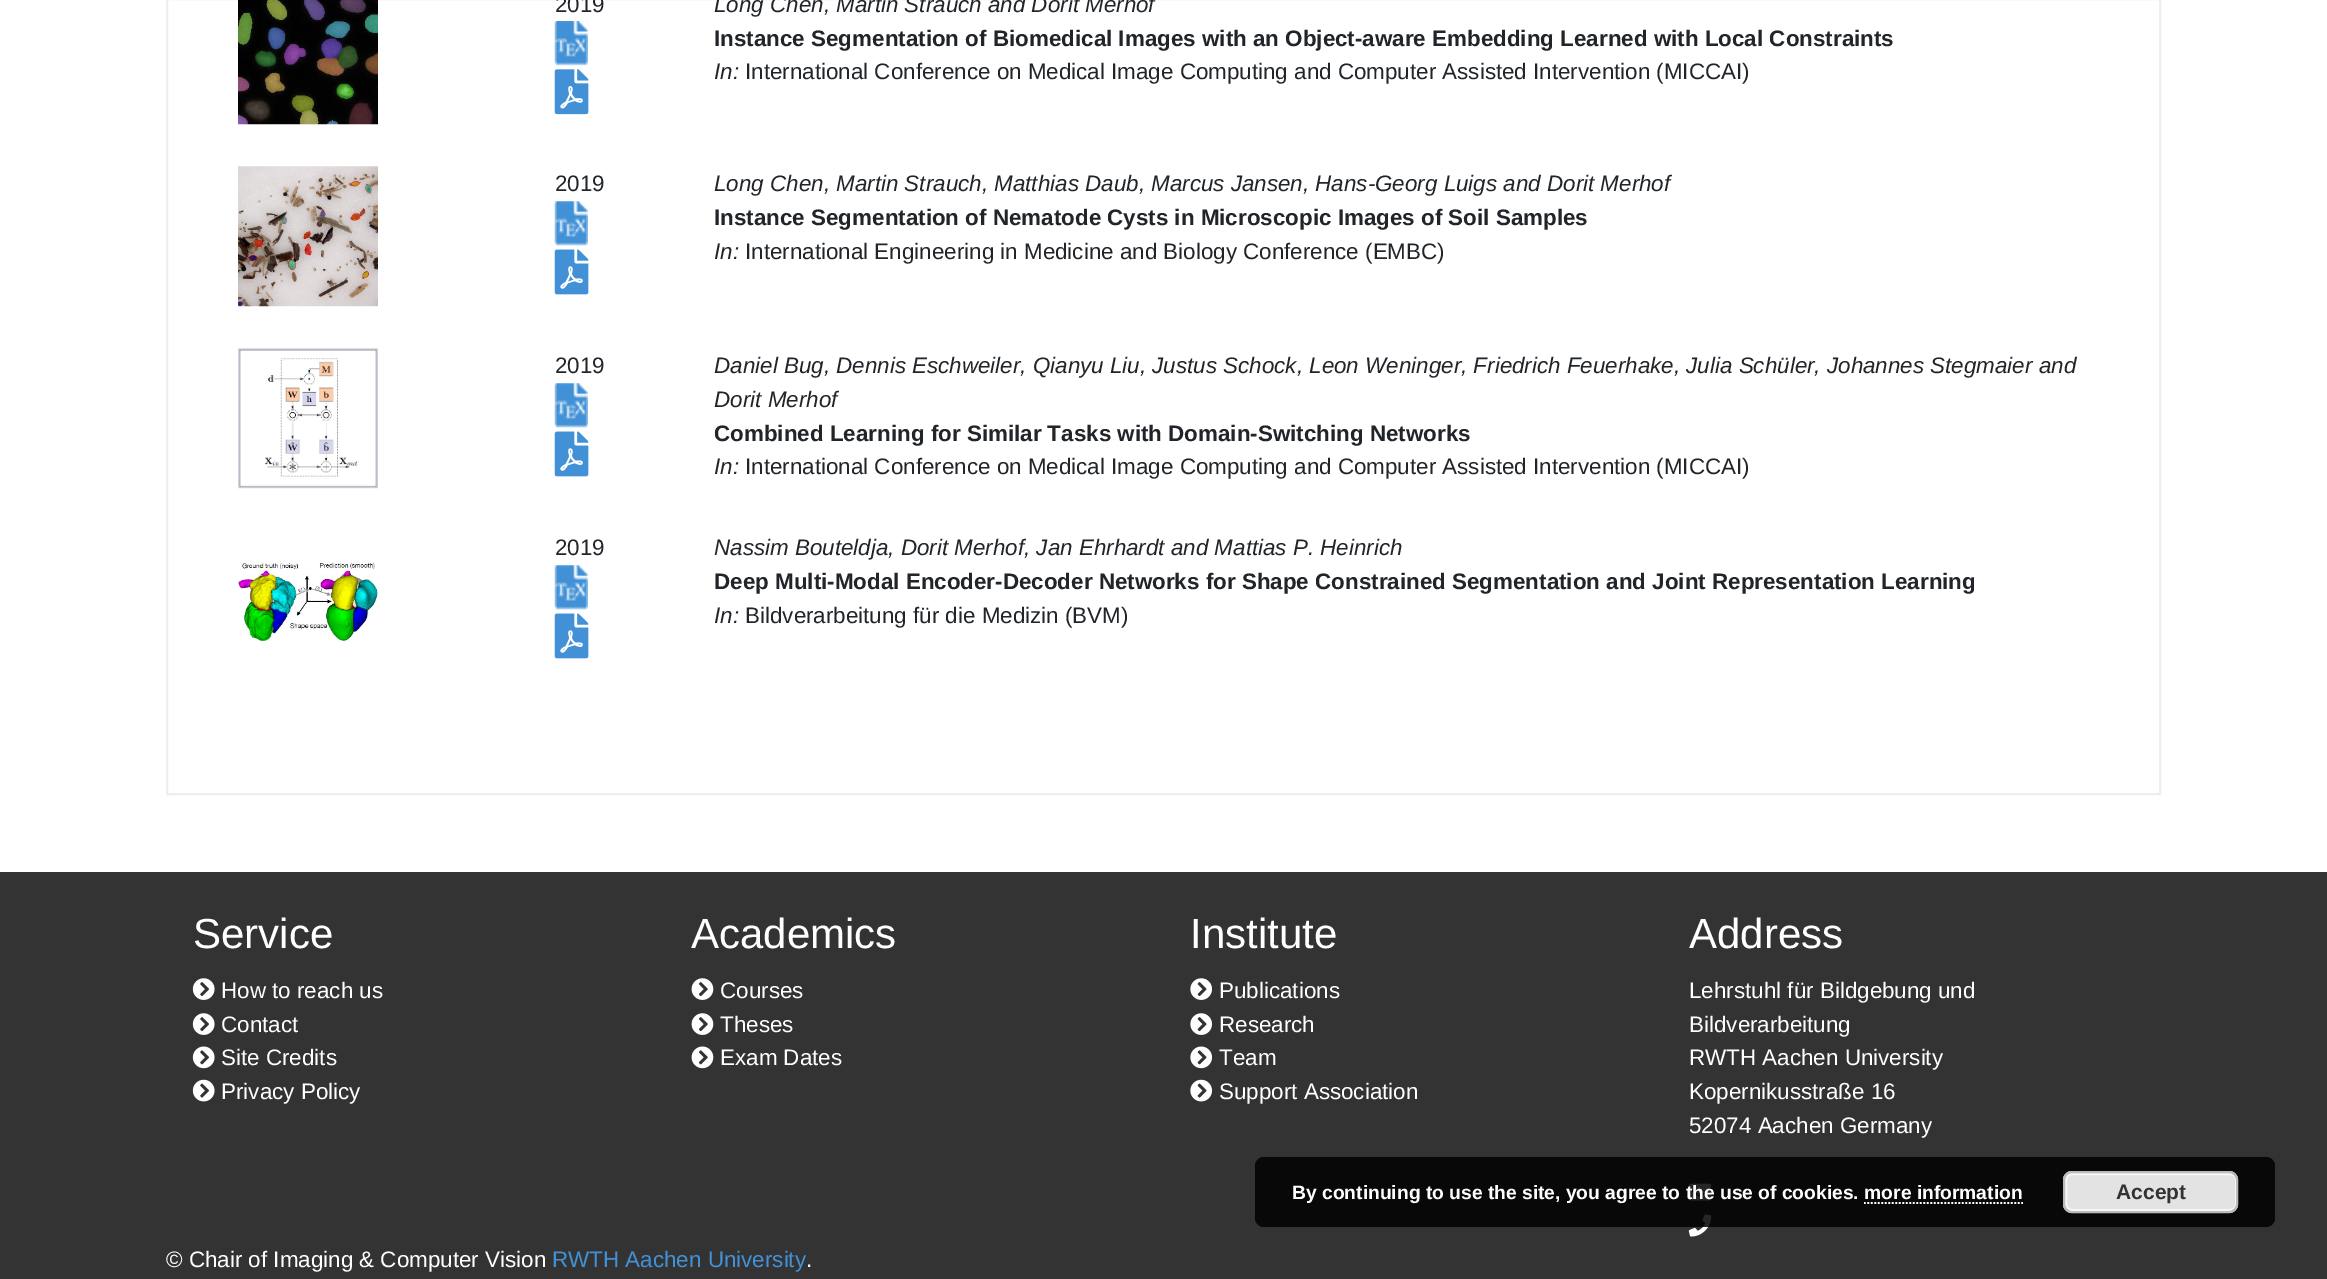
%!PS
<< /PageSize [2327 1279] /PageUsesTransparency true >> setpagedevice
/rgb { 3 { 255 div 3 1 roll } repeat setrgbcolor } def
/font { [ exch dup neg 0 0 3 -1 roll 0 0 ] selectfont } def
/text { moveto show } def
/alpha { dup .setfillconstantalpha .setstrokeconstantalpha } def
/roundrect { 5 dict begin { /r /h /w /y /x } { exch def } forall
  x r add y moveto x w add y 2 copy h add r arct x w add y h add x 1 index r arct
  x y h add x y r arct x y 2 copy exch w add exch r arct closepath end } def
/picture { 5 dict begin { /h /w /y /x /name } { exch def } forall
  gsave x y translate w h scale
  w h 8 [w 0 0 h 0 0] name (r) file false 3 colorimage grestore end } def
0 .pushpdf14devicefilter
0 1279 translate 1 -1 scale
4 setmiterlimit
255 255 255 rgb
0 0 2327 1279 rectfill
238 238 238 rgb
2 setlinewidth
167 -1 1993 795 rectstroke
(img_01.rgb) 238 0 140 125 picture
(img_02.rgb) 554 21 34 45 picture
(img_03.rgb) 554 69 35 46 picture
(img_04.rgb) 238 166 140 141 picture
(img_05.rgb) 554 201 34 45 picture
(img_06.rgb) 554 249 35 46 picture
(img_07.rgb) 238 348 140 141 picture
(img_05.rgb) 554 383 34 45 picture
(img_06.rgb) 554 431 35 46 picture
(img_05.rgb) 554 565 34 45 picture
(img_06.rgb) 554 613 35 46 picture
(img_08.rgb) 238 561 140 81 picture
51 51 51 rgb
0 872 2327 407 rectfill
(img_09.rgb) 192 978 23 22 picture
(img_09.rgb) 192 1013 23 22 picture
(img_10.rgb) 192 1046 23 23 picture
(img_11.rgb) 192 1079 23 23 picture
(img_12.rgb) 691 978 23 22 picture
(img_12.rgb) 691 1013 23 22 picture
(img_13.rgb) 691 1046 23 23 picture
(img_14.rgb) 1190 978 22 22 picture
(img_14.rgb) 1190 1013 22 22 picture
(img_15.rgb) 1190 1046 23 23 picture
(img_16.rgb) 1190 1079 23 23 picture
(img_17.rgb) 1688 1183 24 18 picture
(img_18.rgb) 1688 1214 24 23 picture
0.85 alpha
0 0 0 rgb
1255 1157 1020 70 9 roundrect fill
1 alpha
227 227 227 rgb
2063 1171 175 42 9 roundrect fill
246 246 246 rgb
2066 1174 170 36 6 roundrect stroke
187 187 187 rgb
2064 1172 173 40 8 roundrect stroke
255 255 255 rgb
1.8 setlinewidth
[1.75 1.75] 0 setdash
1864 1203 moveto 159 0 rlineto stroke
/LiberationSans-Regular 22.4 font
33 37 41 rgb
(2019) 555 12 text
/LiberationSans-Italic 22.4 font
(Long Chen, Martin Strauch and Dorit Merhof) 714 12 text
/LiberationSans-Bold 22.4 font
(Instance Segmentation of Biomedical Images with an Object-aware Embedding Learned with Local Constraints) 714 46 text
/LiberationSans-Italic 22.4 font
(In:) 714 79 text
/LiberationSans-Regular 22.4 font
(International Conference on Medical Image Computing and Computer Assisted Intervention \(MICCAI\)) 745 79 text
(2019) 555 191 text
/LiberationSans-Italic 22.4 font
(Long Chen, Martin Strauch, Matthias Daub, Marcus Jansen, Hans-Georg Luigs and Dorit Merhof) 714 191 text
/LiberationSans-Bold 22.4 font
(Instance Segmentation of Nematode Cysts in Microscopic Images of Soil Samples) 714 225 text
/LiberationSans-Italic 22.4 font
(In:) 714 259 text
/LiberationSans-Regular 22.4 font
(International Engineering in Medicine and Biology Conference \(EMBC\)) 745 259 text
(2019) 555 373 text
/LiberationSans-Italic 22.4 font
(Daniel Bug, Dennis Eschweiler, Qianyu Liu, Justus Schock, Leon Weninger, Friedrich Feuerhake, Julia Schüler, Johannes Stegmaier and) 714 373 text
(Dorit Merhof) 714 407 text
/LiberationSans-Bold 22.4 font
(Combined Learning for Similar Tasks with Domain-Switching Networks) 714 441 text
/LiberationSans-Italic 22.4 font
(In:) 714 474 text
/LiberationSans-Regular 22.4 font
(International Conference on Medical Image Computing and Computer Assisted Intervention \(MICCAI\)) 745 474 text
(2019) 555 555 text
/LiberationSans-Italic 22.4 font
(Nassim Bouteldja, Dorit Merhof, Jan Ehrhardt and Mattias P. Heinrich) 714 555 text
/LiberationSans-Bold 22.4 font
(Deep Multi-Modal Encoder-Decoder Networks for Shape Constrained Segmentation and Joint Representation Learning) 714 589 text
/LiberationSans-Italic 22.4 font
(In:) 714 623 text
/LiberationSans-Regular 22.4 font
(Bildverarbeitung für die Medizin \(BVM\)) 745 623 text
/LiberationSans-Regular 42 font
255 255 255 rgb
(Service) 193 948 text
/LiberationSans-Regular 22.4 font
(How to reach us) 221 998 text
(Contact) 221 1032 text
(Site Credits) 221 1065 text
(Privacy Policy) 221 1099 text
/LiberationSans-Regular 42 font
(Academics) 691 948 text
/LiberationSans-Regular 22.4 font
(Courses) 720 998 text
(Theses) 720 1032 text
(Exam Dates) 720 1065 text
/LiberationSans-Regular 42 font
(Institute) 1190 948 text
/LiberationSans-Regular 22.4 font
(Publications) 1219 998 text
(Research) 1219 1032 text
(Team) 1219 1065 text
(Support Association) 1219 1099 text
/LiberationSans-Regular 42 font
(Address) 1689 948 text
/LiberationSans-Regular 22.4 font
(Lehrstuhl für Bildgebung und) 1689 998 text
(Bildverarbeitung) 1689 1032 text
(RWTH Aachen University) 1689 1065 text
(Kopernikusstraße 16) 1689 1099 text
(52074 Aachen Germany) 1689 1133 text
(© Chair of Imaging & Computer Vision) 166 1267 text
66 145 214 rgb
(RWTH Aachen University) 552 1267 text
255 255 255 rgb
(.) 806 1267 text
/LiberationSans-Bold 19.25 font
(By continuing to use the site, you agree to the use of cookies. more information) 1292 1199 text
/LiberationSans-Bold 21 font
51 51 51 rgb
(Accept) 2116 1199 text
.poppdf14devicefilter showpage
